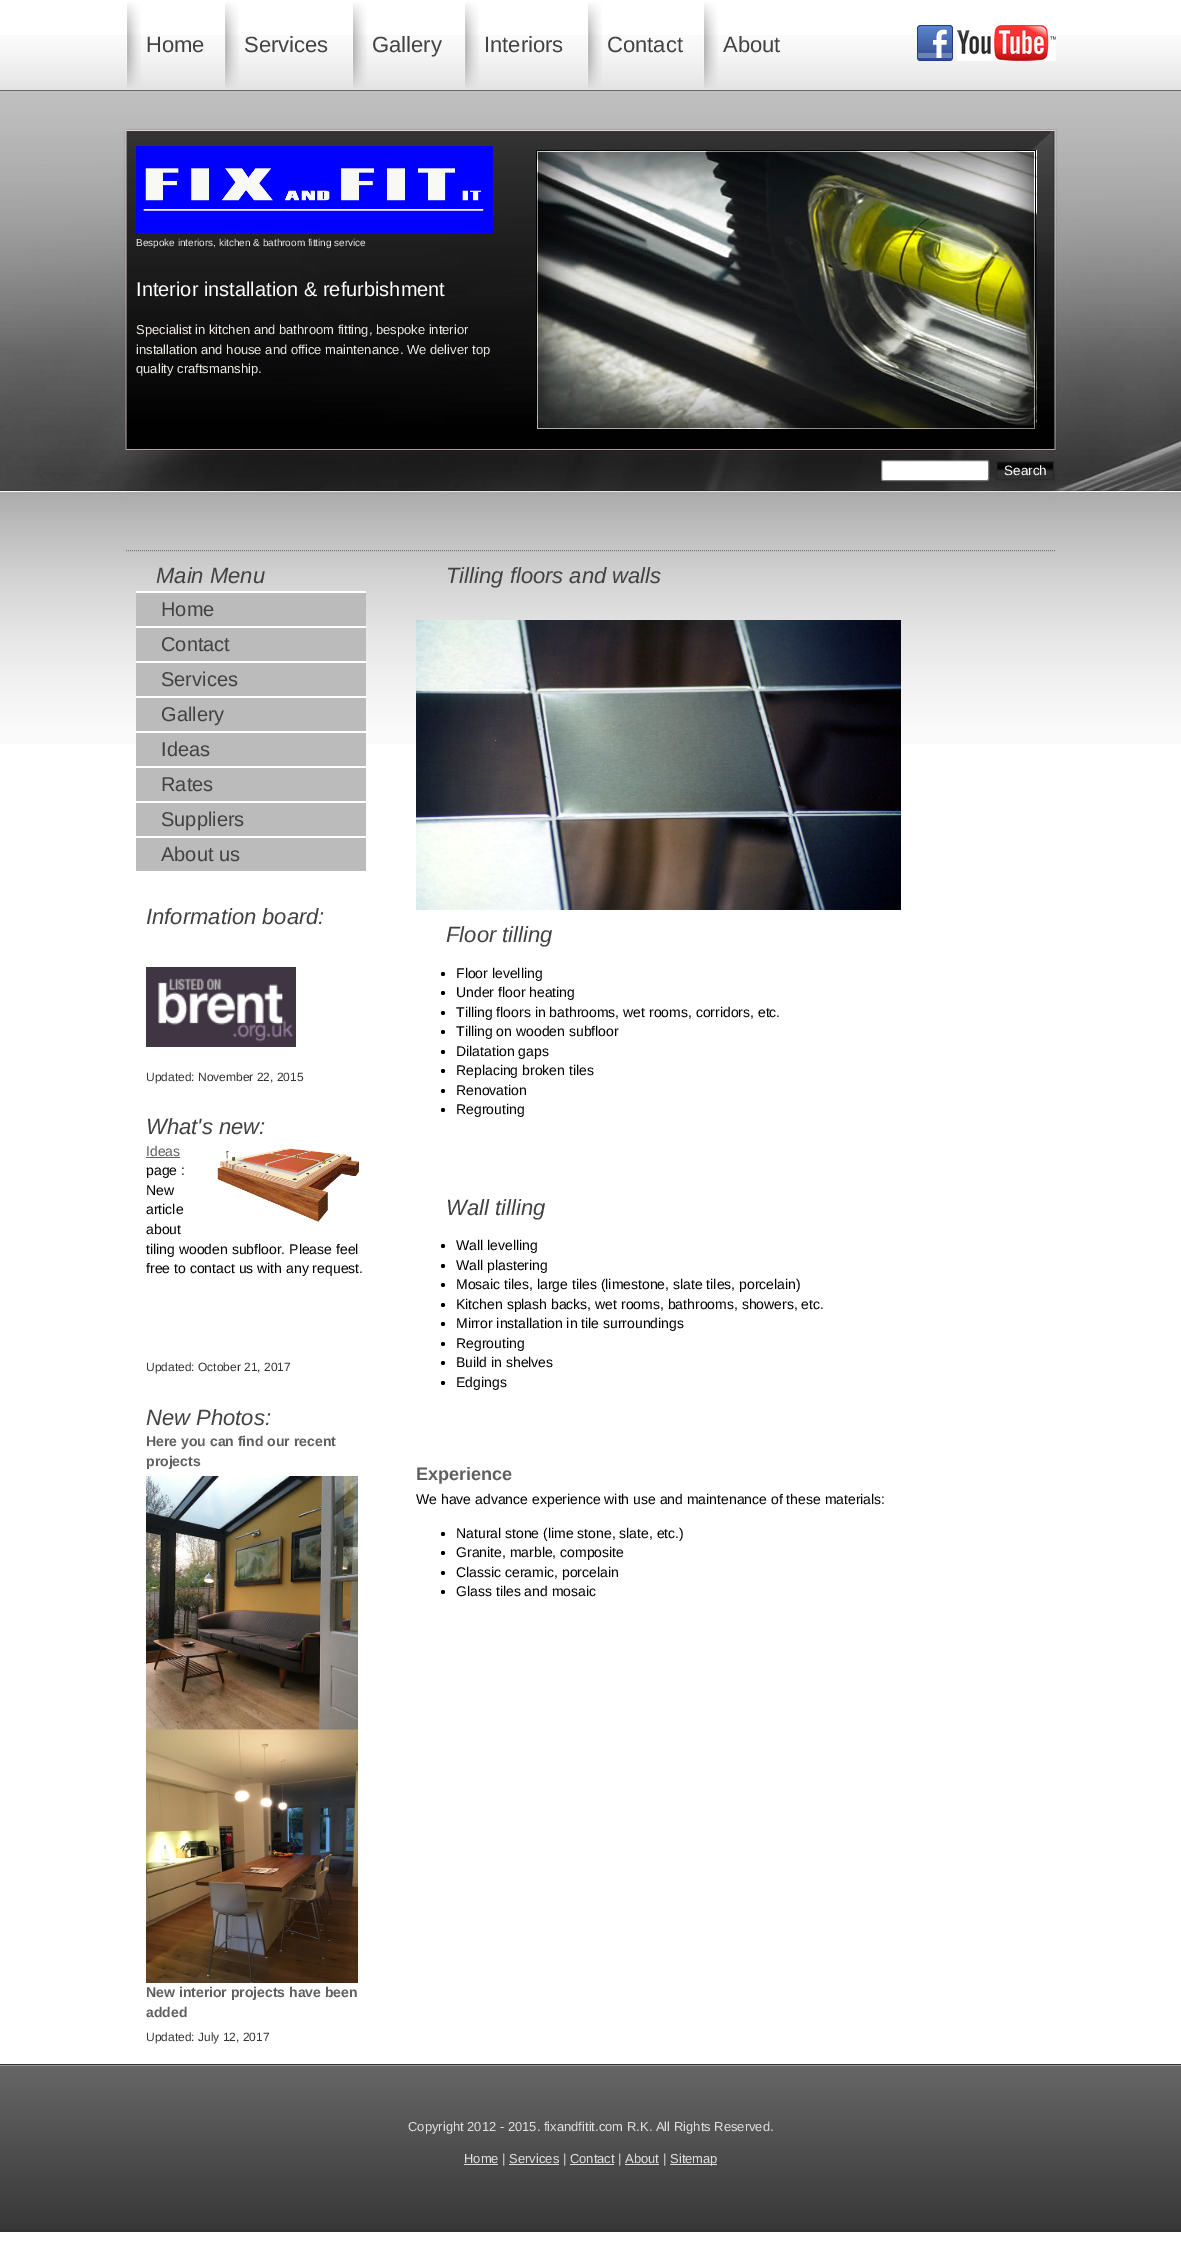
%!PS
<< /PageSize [1181 2250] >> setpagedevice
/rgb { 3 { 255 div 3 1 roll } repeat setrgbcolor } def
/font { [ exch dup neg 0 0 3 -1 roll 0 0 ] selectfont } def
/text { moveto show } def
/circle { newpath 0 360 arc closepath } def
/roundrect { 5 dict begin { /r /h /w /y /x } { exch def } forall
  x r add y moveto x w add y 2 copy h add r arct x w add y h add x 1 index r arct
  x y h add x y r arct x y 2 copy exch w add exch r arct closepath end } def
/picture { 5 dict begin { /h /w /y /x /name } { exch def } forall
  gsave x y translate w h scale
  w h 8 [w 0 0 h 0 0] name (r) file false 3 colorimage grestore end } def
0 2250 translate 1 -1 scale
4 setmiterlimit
255 255 255 rgb
0 0 1181 2250 rectfill
(img_01.rgb) 0 35 1181 709 picture
(img_02.rgb) 126 2 15 86 picture
(img_03.rgb) 224 2 15 86 picture
(img_04.rgb) 352 2 15 86 picture
(img_03.rgb) 464 2 15 86 picture
(img_03.rgb) 587 2 15 86 picture
(img_05.rgb) 703 2 15 86 picture
(img_06.rgb) 917 25 36 36 picture
(img_07.rgb) 957 25 99 36 picture
(img_08.rgb) 136 146 357 87 picture
(img_09.rgb) 537 150 500 280 picture
(img_10.rgb) 536 150 500 280 picture
881.5 460.5 107 20 1.5 roundrect gsave fill grestore
118 118 118 rgb
stroke
(img_11.rgb) 997 462 56 17 picture
40 41 45 rgb
996.5 461.5 57 18 rectstroke
119 119 119 rgb
[1 1] 0 setdash
126 550.5 moveto 930 0 rlineto stroke
255 255 255 rgb
136 591 230 2 rectfill
187 187 187 rgb
136 593 230 33 rectfill
255 255 255 rgb
136 626 230 2 rectfill
187 187 187 rgb
136 628 230 33 rectfill
136 663 230 33 rectfill
255 255 255 rgb
136 661 230 2 rectfill
187 187 187 rgb
136 698 230 33 rectfill
255 255 255 rgb
136 696 230 2 rectfill
187 187 187 rgb
136 733 230 33 rectfill
255 255 255 rgb
136 731 230 2 rectfill
187 187 187 rgb
136 768 230 33 rectfill
136 803 230 33 rectfill
136 838 230 33 rectfill
(img_12.rgb) 146 967 150 80 picture
95 95 95 rgb
146 1157 34 1 rectfill
(img_13.rgb) 217 1148 142 74 picture
(img_14.rgb) 146 1476 212 507 picture
(img_15.rgb) 416 620 485 290 picture
0 0 0 rgb
443 974 2 circle fill
443 993 2 circle fill
443 1013 2 circle fill
443 1032 2 circle fill
443 1052 2 circle fill
443 1071 2 circle fill
443 1091 2 circle fill
443 1110 2 circle fill
443 1246 2 circle fill
443 1266 2 circle fill
443 1285 2 circle fill
443 1305 2 circle fill
443 1324 2 circle fill
443 1344 2 circle fill
443 1363 2 circle fill
443 1383 2 circle fill
443 1534 2 circle fill
443 1553 2 circle fill
443 1573 2 circle fill
443 1592 2 circle fill
51 51 51 rgb
0 2064 1181 168 rectfill
(img_16.rgb) 0 2065 1181 164 picture
225 225 225 rgb
464 2164 34 1 rectfill
670 2164 47 1 rectfill
509 2164 50 1 rectfill
570 2164 44 1 rectfill
625 2164 34 1 rectfill
/LiberationSans-Regular 22 font
66 66 66 rgb
(Home) 146 52 text
(Services) 244 52 text
(Gallery) 372 52 text
(Interiors) 484 52 text
(Contact) 607 52 text
(About) 723 52 text
/LiberationSans-Regular 10 font
239 239 239 rgb
(Bespoke interiors, kitchen & bathroom fitting service) 136 246 text
/LiberationSans-Regular 13.5 font
255 255 255 rgb
(Search) 1004 475 text
/LiberationSans-Regular 20 font
(Interior installation & refurbishment) 136 296 text
/LiberationSans-Regular 13 font
237 235 228 rgb
(Specialist in kitchen and bathroom fitting, bespoke interior) 136 334 text
(installation and house and office maintenance. We deliver top) 136 354 text
(quality craftsmanship.) 136 373 text
/LiberationSans-Italic 22 font
66 66 66 rgb
(Main Menu) 156 583 text
/LiberationSans-Regular 20 font
(Home) 161 616 text
(Contact) 161 651 text
(Services) 161 686 text
(Gallery) 161 721 text
(Ideas) 161 756 text
(Rates) 161 791 text
(Suppliers) 161 826 text
(About us) 161 861 text
/LiberationSans-Italic 22 font
(Information board:) 146 924 text
/LiberationSans-Regular 12 font
51 51 51 rgb
(Updated: November 22, 2015) 146 1081 text
/LiberationSans-Italic 22 font
66 66 66 rgb
(What's new:) 146 1134 text
/LiberationSans-Regular 14 font
95 95 95 rgb
(Ideas) 146 1156 text
0 0 0 rgb
(page :) 146 1175 text
(New) 146 1195 text
(article) 146 1214 text
(about) 146 1234 text
(tiling wooden subfloor. Please feel) 146 1254 text
(free to contact us with any request.) 146 1273 text
/LiberationSans-Regular 12 font
51 51 51 rgb
(Updated: October 21, 2017) 146 1371 text
/LiberationSans-Italic 22 font
66 66 66 rgb
(New Photos:) 146 1425 text
/LiberationSans-Bold 14 font
95 95 95 rgb
(Here you can find our recent) 146 1446 text
(projects) 146 1466 text
(New interior projects have been) 146 1997 text
(added) 146 2017 text
/LiberationSans-Regular 12 font
51 51 51 rgb
(Updated: July 12, 2017) 146 2041 text
/LiberationSans-Italic 22 font
66 66 66 rgb
(Tilling floors and walls) 446 583 text
(Floor tilling) 446 942 text
/LiberationSans-Regular 14 font
0 0 0 rgb
(Floor levelling) 456 978 text
(Under floor heating) 456 997 text
(Tilling floors in bathrooms, wet rooms, corridors, etc.) 456 1017 text
(Tilling on wooden subfloor) 456 1036 text
(Dilatation gaps) 456 1056 text
(Replacing broken tiles) 456 1075 text
(Renovation) 456 1095 text
(Regrouting) 456 1114 text
/LiberationSans-Italic 22 font
66 66 66 rgb
(Wall tilling) 446 1215 text
/LiberationSans-Regular 14 font
0 0 0 rgb
(Wall levelling) 456 1250 text
(Wall plastering) 456 1270 text
(Mosaic tiles, large tiles \(limestone, slate tiles, porcelain\)) 456 1289 text
(Kitchen splash backs, wet rooms, bathrooms, showers, etc.) 456 1309 text
(Mirror installation in tile surroundings) 456 1328 text
(Regrouting) 456 1348 text
(Build in shelves) 456 1367 text
(Edgings) 456 1387 text
/LiberationSans-Bold 18 font
95 95 95 rgb
(Experience) 416 1480 text
/LiberationSans-Regular 14 font
0 0 0 rgb
(We have advance experience with use and maintenance of these materials:) 416 1504 text
(Natural stone \(lime stone, slate, etc.\)) 456 1538 text
(Granite, marble, composite) 456 1557 text
(Classic ceramic, porcelain) 456 1577 text
(Glass tiles and mosaic) 456 1596 text
/LiberationSans-Regular 13 font
225 225 225 rgb
(Copyright 2012 - 2015. fixandfitit.com R.K. All Rights Reserved.) 408 2131 text
(Home | Services | Contact | About |) 464 2163 text
(Sitemap) 670 2163 text
showpage
